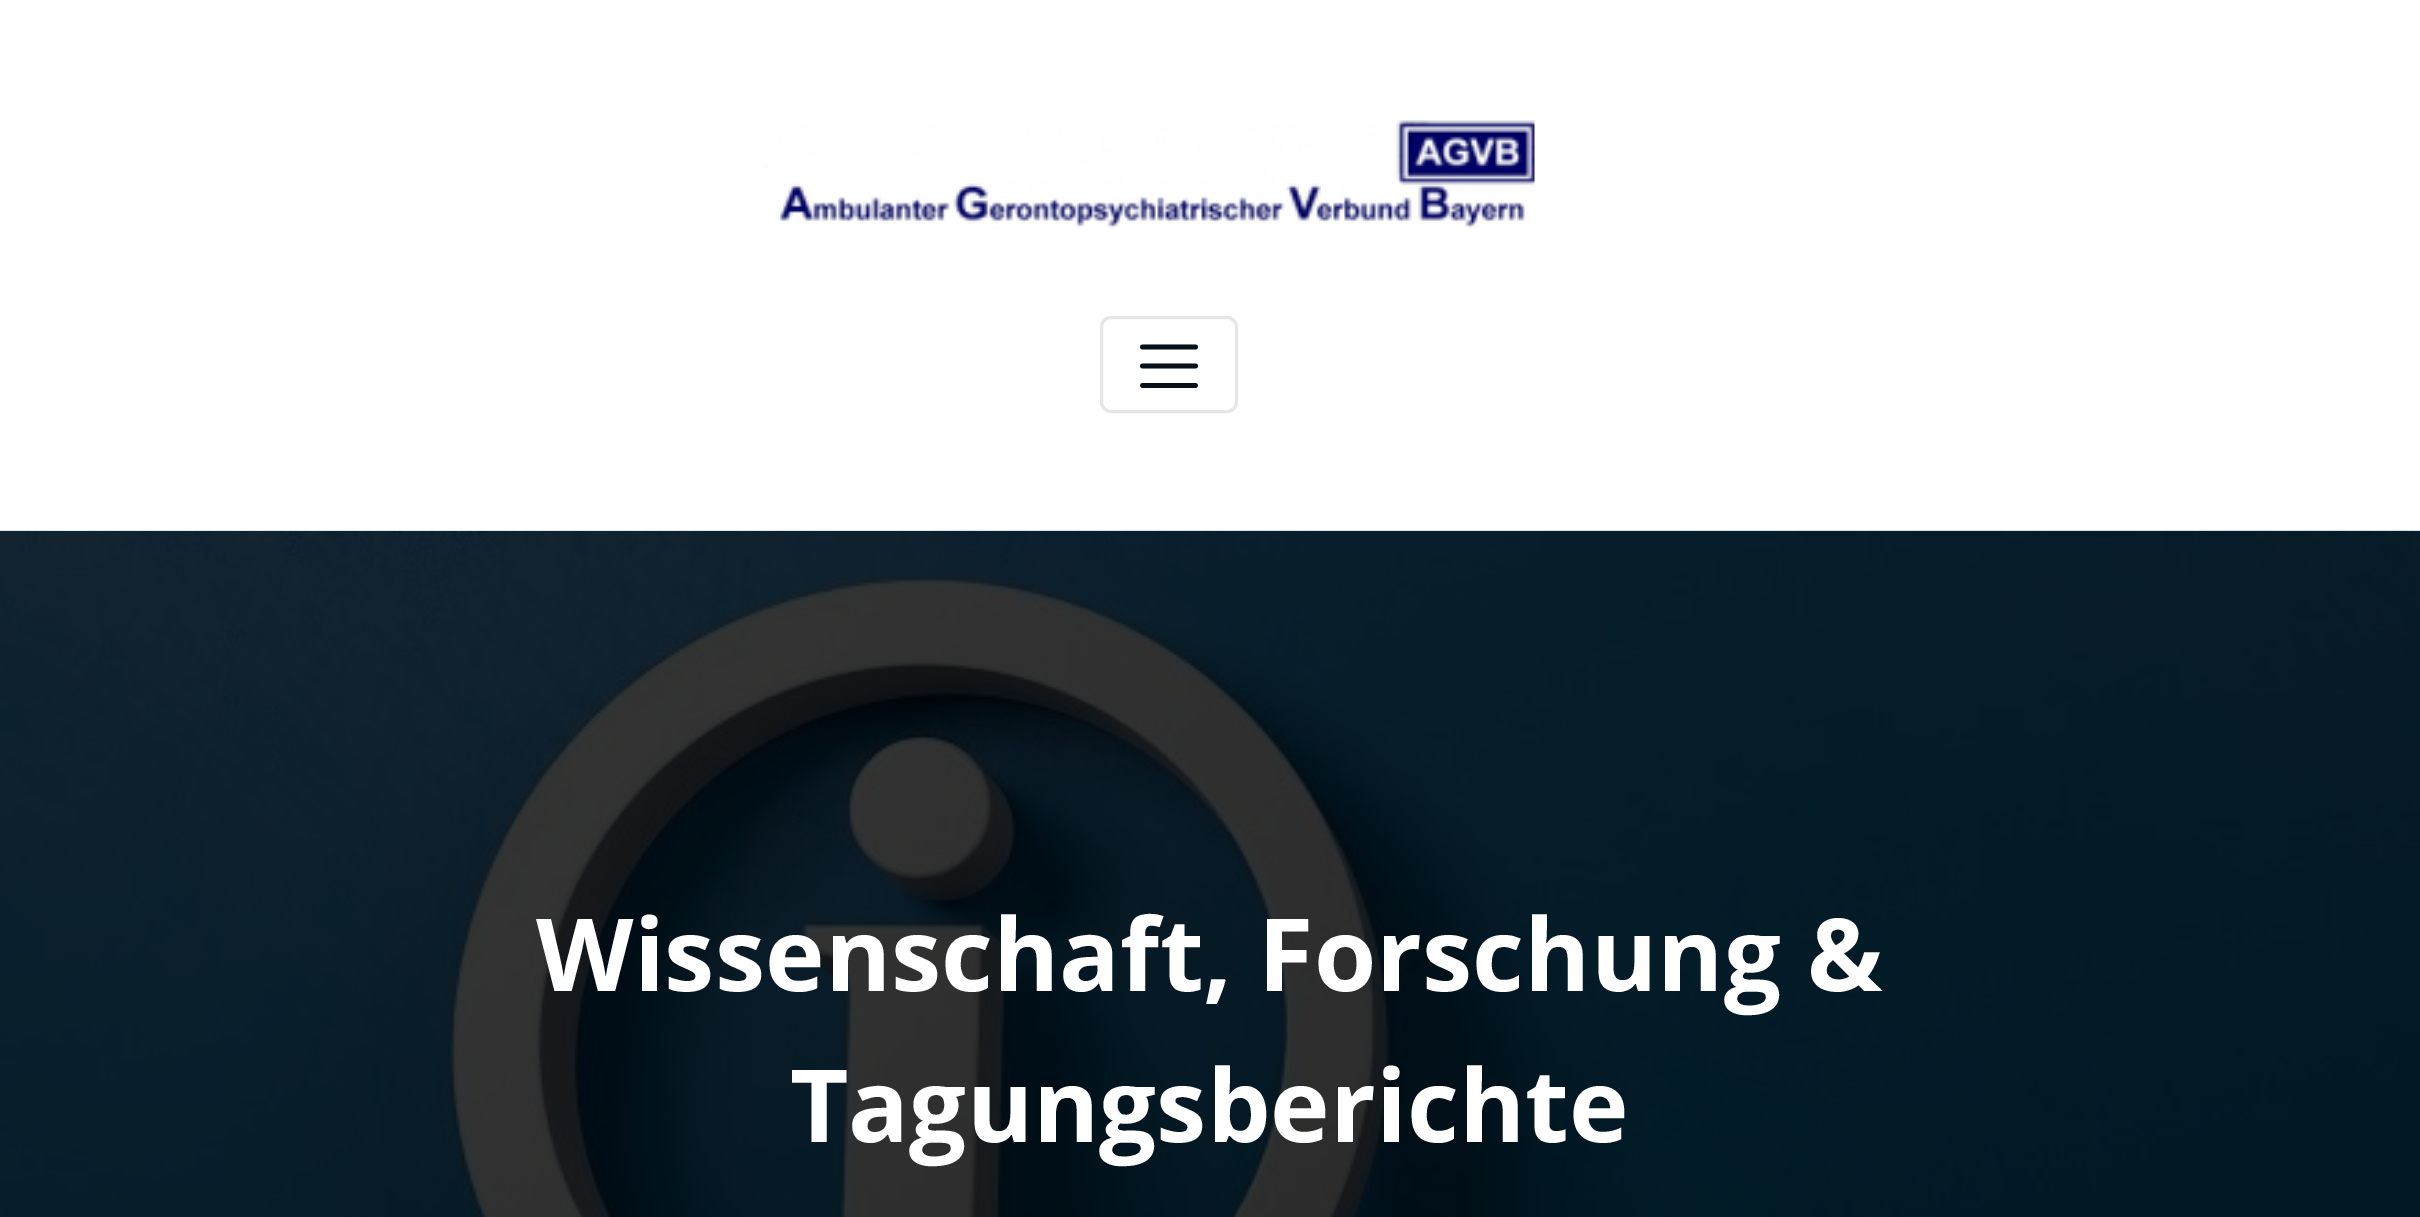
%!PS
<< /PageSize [2420 1217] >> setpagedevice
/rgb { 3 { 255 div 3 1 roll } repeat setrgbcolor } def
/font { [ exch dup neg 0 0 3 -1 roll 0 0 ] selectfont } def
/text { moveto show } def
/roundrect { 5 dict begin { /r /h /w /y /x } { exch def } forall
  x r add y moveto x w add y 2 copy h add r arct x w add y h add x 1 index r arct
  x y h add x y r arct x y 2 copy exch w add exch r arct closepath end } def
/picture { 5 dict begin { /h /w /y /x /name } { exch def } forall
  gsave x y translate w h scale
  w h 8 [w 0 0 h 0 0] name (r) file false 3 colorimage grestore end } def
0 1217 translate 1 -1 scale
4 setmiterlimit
255 255 255 rgb
0 0 2420 1217 rectfill
(img_01.rgb) 764 120 771 109 picture
230 230 230 rgb
3 setlinewidth
1101.5 317.5 135 94 9.5 roundrect stroke
6 16 24 rgb
4.8 setlinewidth
1 setlinecap
1142.5 347 moveto 53 0 rlineto 1142.5 366 moveto 53 0 rlineto 1142.5 385.5 moveto 53 0 rlineto stroke
(img_02.rgb) 0 530 2420 687 picture
/OpenSans-Bold 101 font
255 255 255 rgb
(Wissenschaft, Forschung &) 536 991 text
(Tagungsberichte) 790 1142 text
showpage
